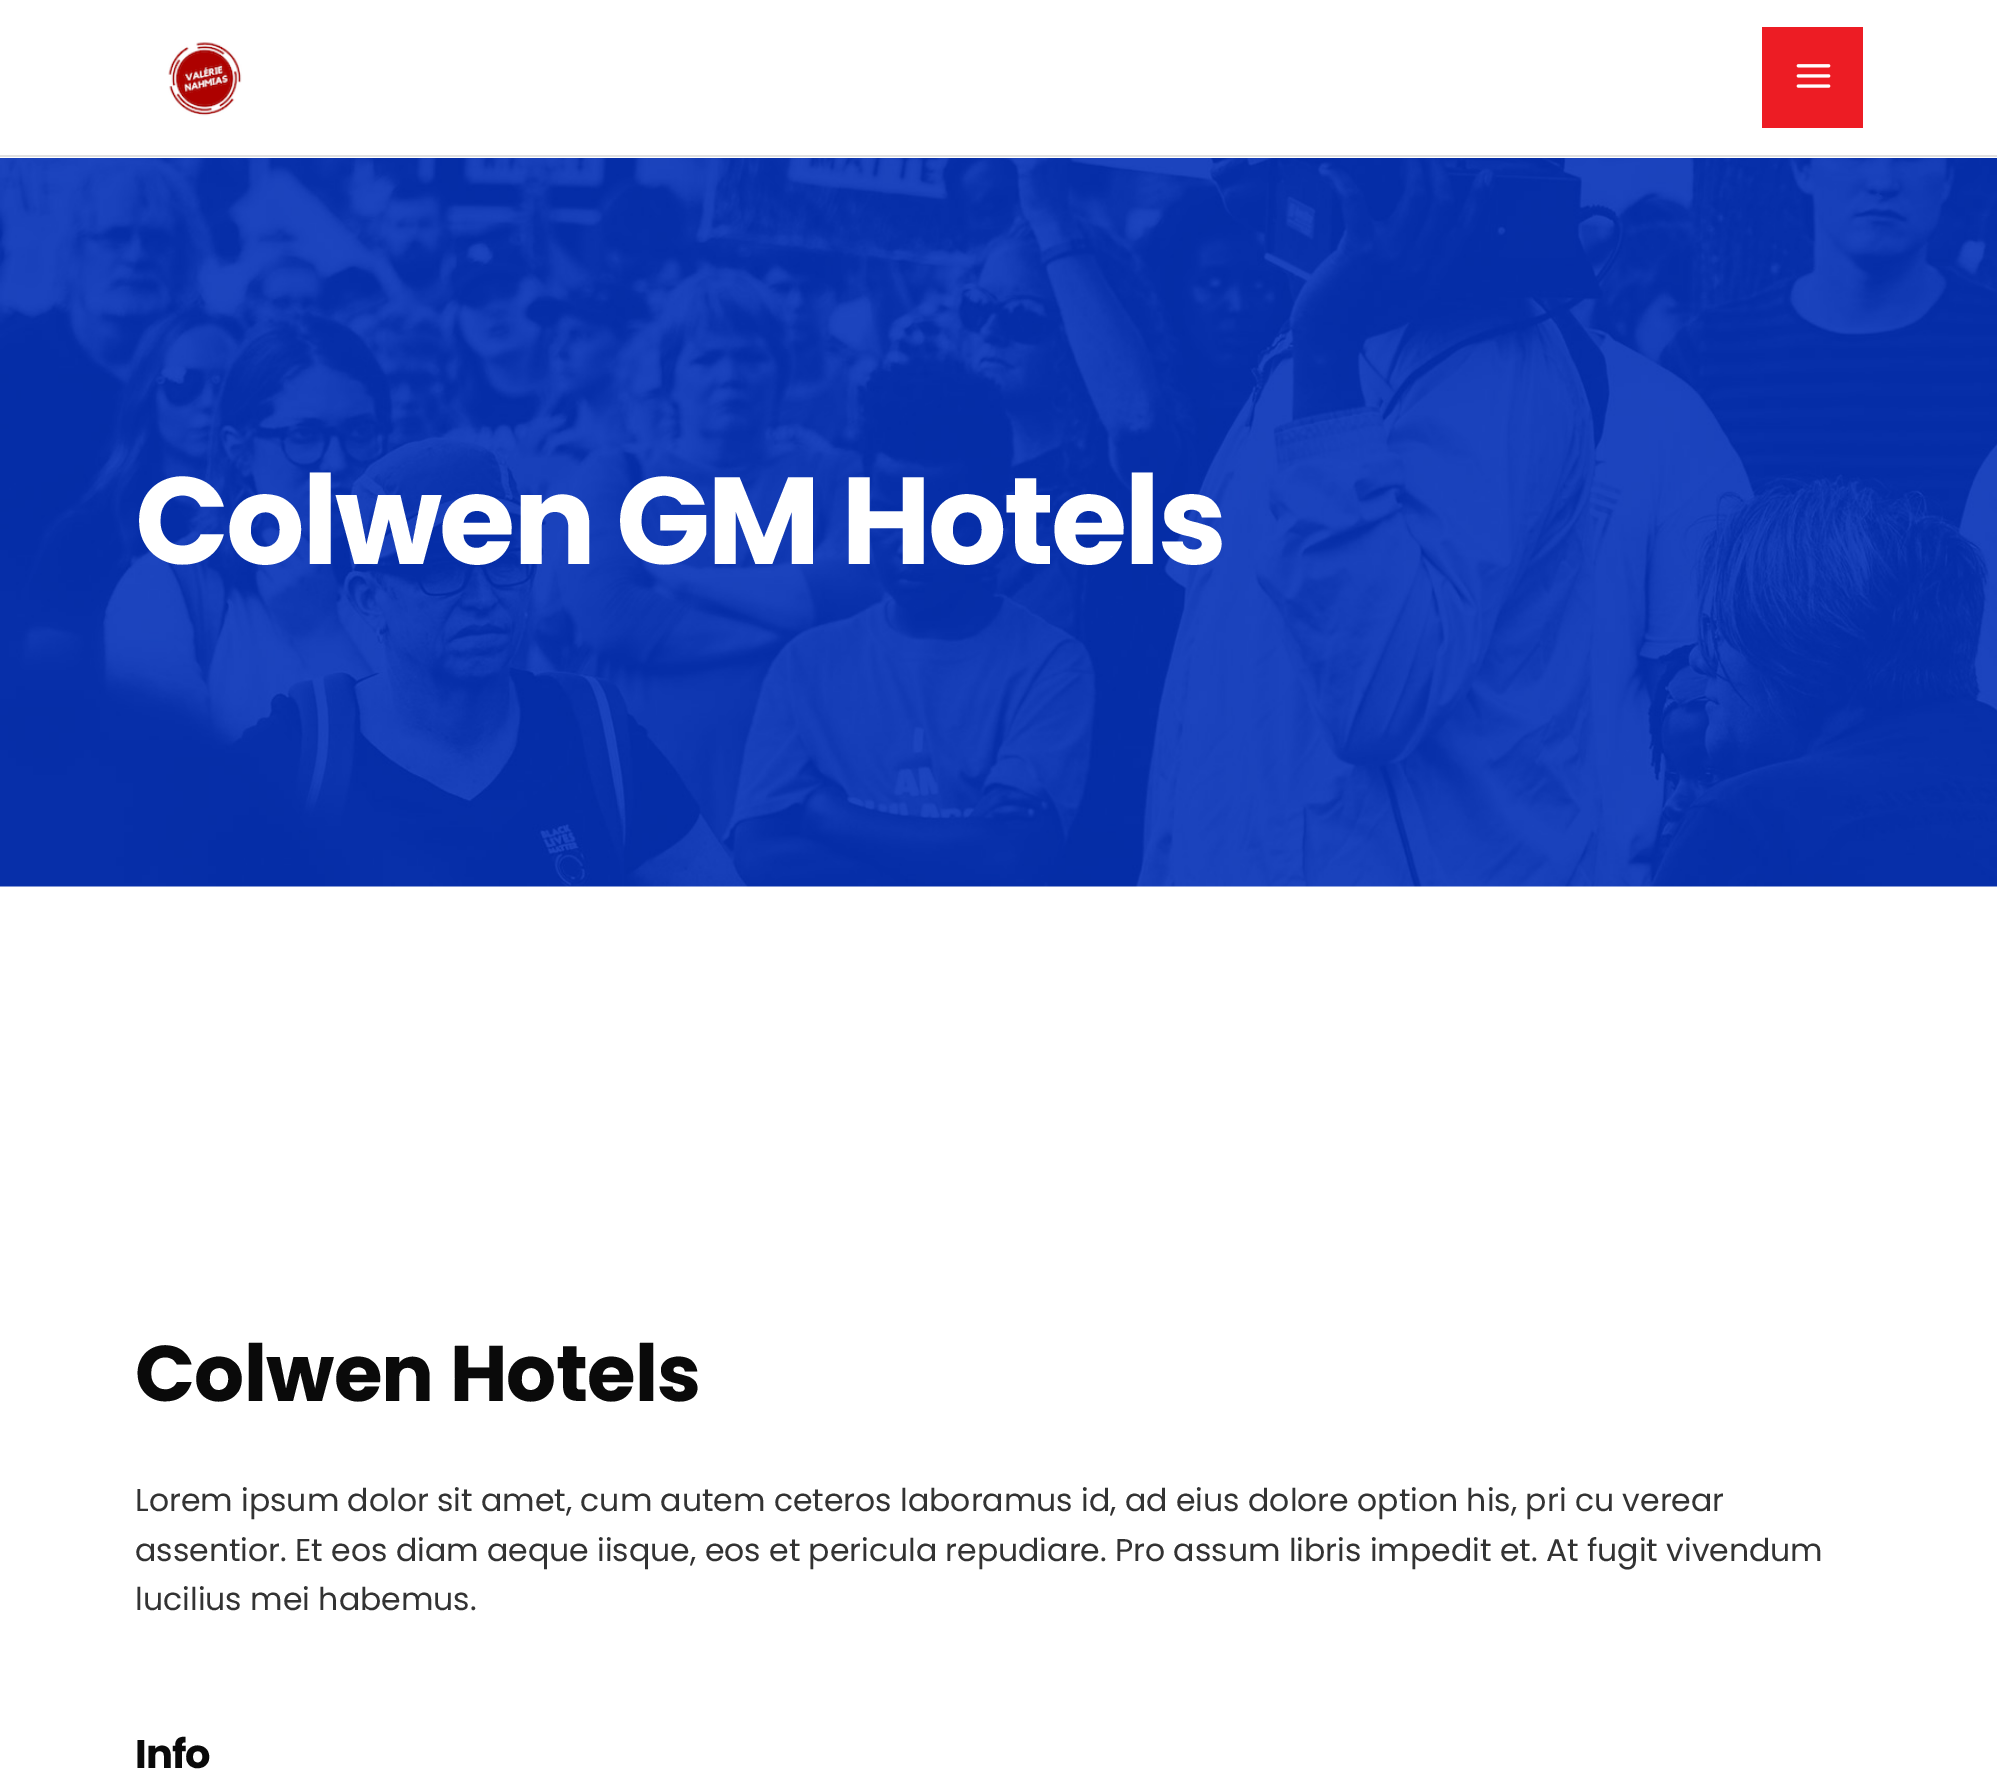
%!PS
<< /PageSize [1997 1785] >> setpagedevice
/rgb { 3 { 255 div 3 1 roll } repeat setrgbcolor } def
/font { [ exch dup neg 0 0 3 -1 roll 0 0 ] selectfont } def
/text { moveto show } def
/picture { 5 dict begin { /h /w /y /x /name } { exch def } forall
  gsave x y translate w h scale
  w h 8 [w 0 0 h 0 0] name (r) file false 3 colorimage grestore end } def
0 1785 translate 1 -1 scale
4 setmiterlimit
255 255 255 rgb
0 0 1997 1785 rectfill
224 224 224 rgb
0 155 1997 2 rectfill
(img_01.rgb) 168 42 74 74 picture
237 28 36 rgb
1762 27 101 101 rectfill
(img_02.rgb) 1796 64 35 24 picture
(img_03.rgb) 0 158 1997 729 picture
/Poppins-Bold 123.75 font
255 255 255 rgb
135 564 moveto -3.1 0 (Colwen GM Hotels) ashow
/Poppins-Bold 78.75 font
10 10 10 rgb
135 1401 moveto -0.75 0 (Colwen Hotels) ashow
/Poppins-Regular 31.5 font
51 51 51 rgb
(Lorem ipsum dolor sit amet, cum autem ceteros laboramus id, ad eius dolore option his, pri cu verear) 135 1511 text
(assentior. Et eos diam aeque iisque, eos et pericula repudiare. Pro assum libris impedit et. At fugit vivendum) 135 1561 text
(lucilius mei habemus.) 135 1610 text
/Poppins-Bold 40 font
10 10 10 rgb
135 1768 moveto -1 0 (Info) ashow
showpage
